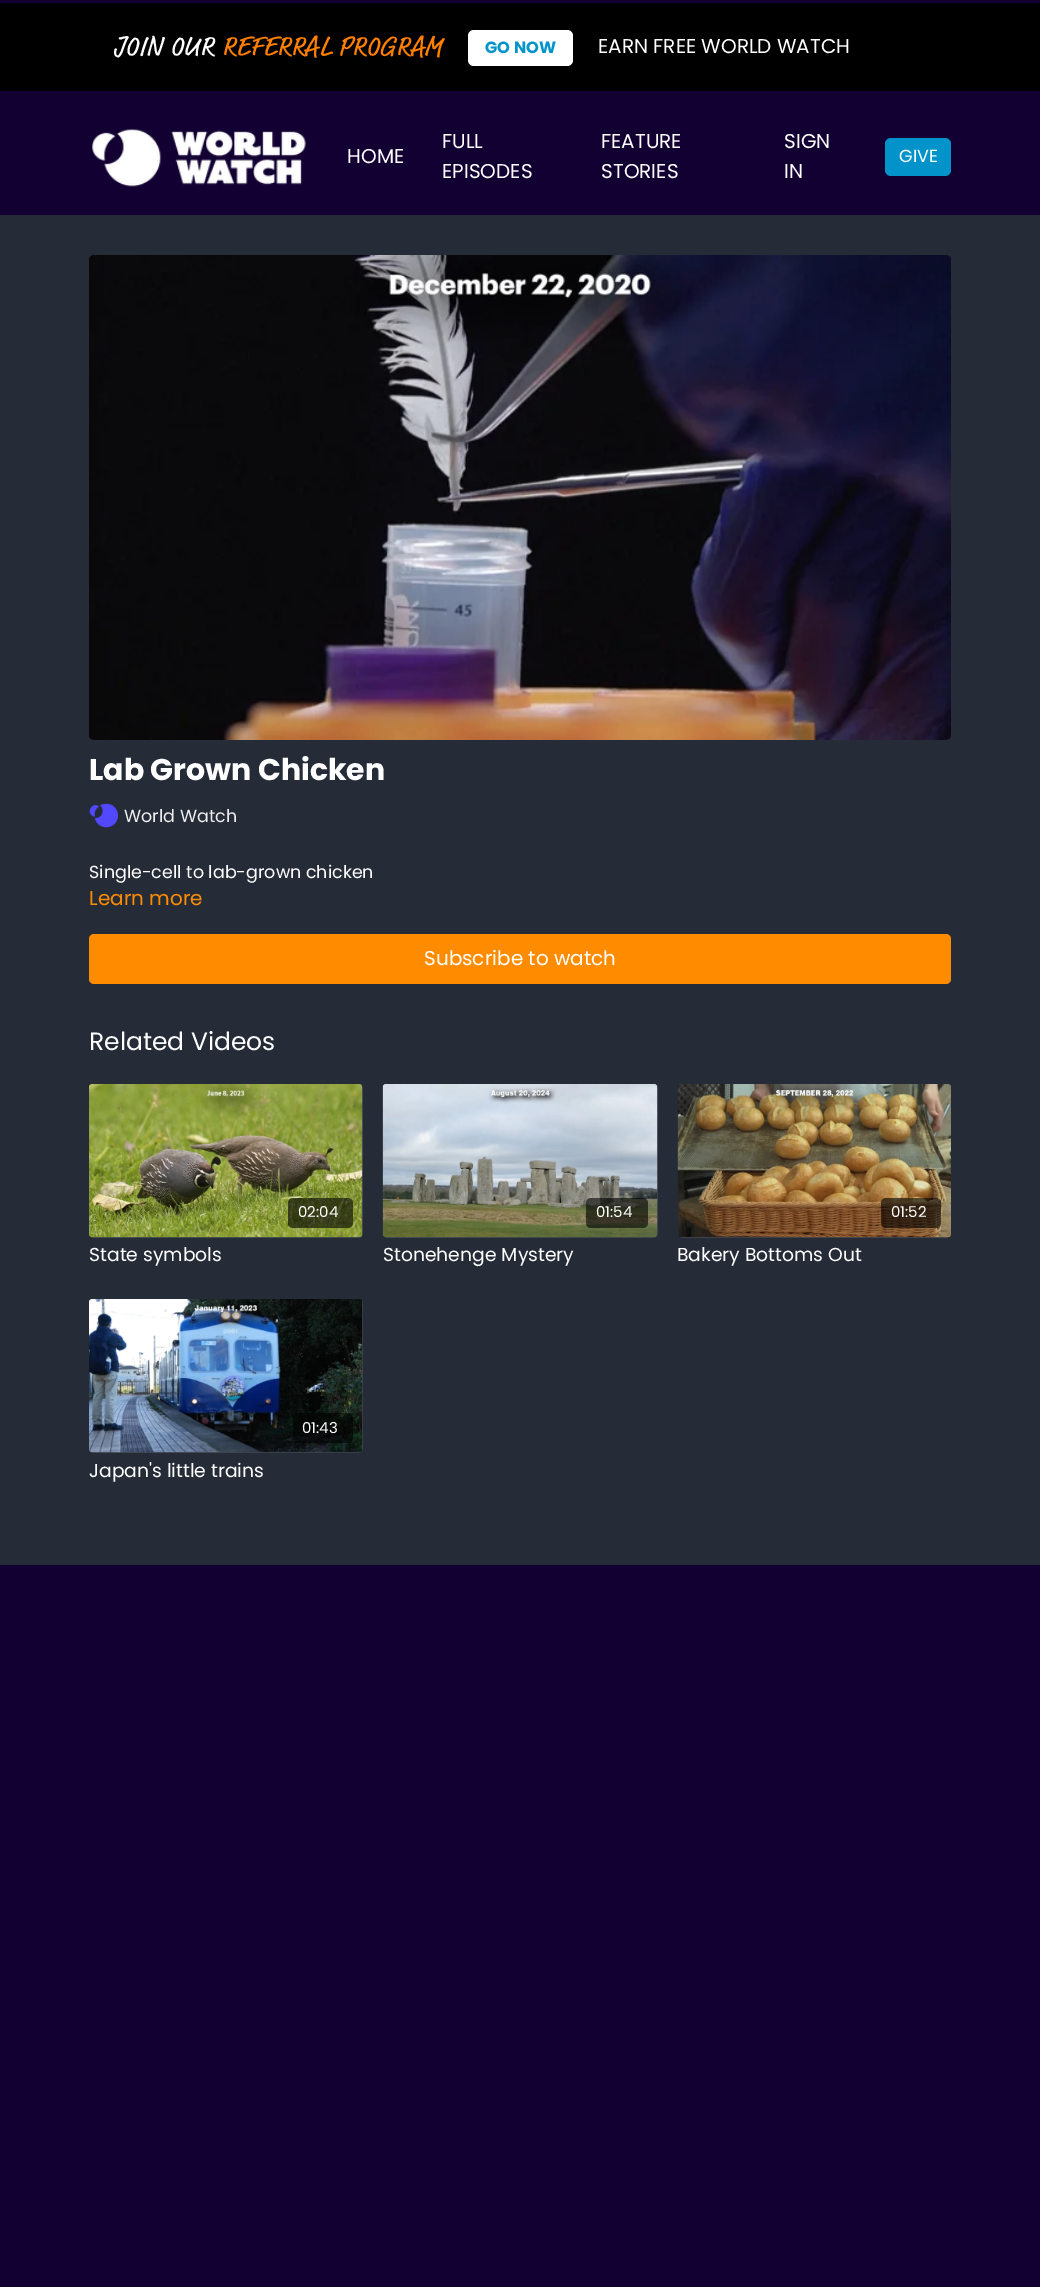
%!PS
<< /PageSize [1040 2287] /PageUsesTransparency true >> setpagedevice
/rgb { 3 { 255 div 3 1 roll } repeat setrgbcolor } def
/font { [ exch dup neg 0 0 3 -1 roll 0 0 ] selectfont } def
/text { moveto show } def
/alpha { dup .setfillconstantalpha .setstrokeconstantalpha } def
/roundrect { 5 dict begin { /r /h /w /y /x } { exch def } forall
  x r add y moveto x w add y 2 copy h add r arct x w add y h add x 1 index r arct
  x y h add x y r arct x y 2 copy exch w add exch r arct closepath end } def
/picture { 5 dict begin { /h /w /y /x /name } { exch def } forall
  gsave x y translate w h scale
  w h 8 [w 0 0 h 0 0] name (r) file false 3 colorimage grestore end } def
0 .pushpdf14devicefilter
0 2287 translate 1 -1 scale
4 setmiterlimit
18 0 51 rgb
0 0 1040 2287 rectfill
0 0 0 rgb
0 3 1040 88 rectfill
255 255 255 rgb
468 30 105 36 6 roundrect fill
(img_01.rgb) 92 128 214 59 picture
1 147 202 rgb
885 138 66 38 6 roundrect fill
37 44 56 rgb
0 215 1040 1350 rectfill
(img_02.rgb) 89 255 862 485 picture
(img_03.rgb) 89 803 30 25 picture
255 140 0 rgb
89 934 862 50 5 roundrect fill
gsave 89 1084 274 154 5 roundrect clip newpath
<< /ShadingType 2 /ColorSpace /DeviceRGB /Coords [89 1161 363 1161] /Extend [true true] /Function << /FunctionType 3 /Domain [0 1] /Functions [<< /FunctionType 2 /Domain [0 1] /C0 [0.255 0.278 0.322] /C1 [0.255 0.278 0.322] /N 1 >> << /FunctionType 2 /Domain [0 1] /C0 [0.255 0.278 0.322] /C1 [0.247 0.271 0.314] /N 1 >> << /FunctionType 2 /Domain [0 1] /C0 [0.247 0.271 0.314] /C1 [0.239 0.263 0.306] /N 1 >> << /FunctionType 2 /Domain [0 1] /C0 [0.239 0.263 0.306] /C1 [0.239 0.263 0.306] /N 1 >>] /Bounds [0.08 0.18 0.33] /Encode [0 1 0 1 0 1 0 1] >> >> shfill grestore
(img_04.rgb) 89 1084 274 154 picture
0.6 alpha
0 0 0 rgb
288 1198 65 30 5 roundrect fill
1 alpha
gsave 383 1084 275 154 5 roundrect clip newpath
<< /ShadingType 2 /ColorSpace /DeviceRGB /Coords [383 1161 658 1161] /Extend [true true] /Function << /FunctionType 3 /Domain [0 1] /Functions [<< /FunctionType 2 /Domain [0 1] /C0 [0.255 0.278 0.322] /C1 [0.255 0.278 0.322] /N 1 >> << /FunctionType 2 /Domain [0 1] /C0 [0.255 0.278 0.322] /C1 [0.247 0.271 0.314] /N 1 >> << /FunctionType 2 /Domain [0 1] /C0 [0.247 0.271 0.314] /C1 [0.239 0.263 0.306] /N 1 >> << /FunctionType 2 /Domain [0 1] /C0 [0.239 0.263 0.306] /C1 [0.239 0.263 0.306] /N 1 >>] /Bounds [0.08 0.18 0.33] /Encode [0 1 0 1 0 1 0 1] >> >> shfill grestore
(img_05.rgb) 382 1084 276 154 picture
0.6 alpha
586 1198 62 30 5 roundrect fill
1 alpha
gsave 678 1084 273 154 5 roundrect clip newpath
<< /ShadingType 2 /ColorSpace /DeviceRGB /Coords [678 1161 951 1161] /Extend [true true] /Function << /FunctionType 3 /Domain [0 1] /Functions [<< /FunctionType 2 /Domain [0 1] /C0 [0.255 0.278 0.322] /C1 [0.255 0.278 0.322] /N 1 >> << /FunctionType 2 /Domain [0 1] /C0 [0.255 0.278 0.322] /C1 [0.247 0.271 0.314] /N 1 >> << /FunctionType 2 /Domain [0 1] /C0 [0.247 0.271 0.314] /C1 [0.239 0.263 0.306] /N 1 >> << /FunctionType 2 /Domain [0 1] /C0 [0.239 0.263 0.306] /C1 [0.239 0.263 0.306] /N 1 >>] /Bounds [0.08 0.18 0.33] /Encode [0 1 0 1 0 1 0 1] >> >> shfill grestore
(img_06.rgb) 677 1084 274 154 picture
0.6 alpha
881 1198 60 30 5 roundrect fill
1 alpha
gsave 89 1299 274 154 5 roundrect clip newpath
<< /ShadingType 2 /ColorSpace /DeviceRGB /Coords [89 1376 363 1376] /Extend [true true] /Function << /FunctionType 3 /Domain [0 1] /Functions [<< /FunctionType 2 /Domain [0 1] /C0 [0.255 0.278 0.322] /C1 [0.255 0.278 0.322] /N 1 >> << /FunctionType 2 /Domain [0 1] /C0 [0.255 0.278 0.322] /C1 [0.247 0.271 0.314] /N 1 >> << /FunctionType 2 /Domain [0 1] /C0 [0.247 0.271 0.314] /C1 [0.239 0.263 0.306] /N 1 >> << /FunctionType 2 /Domain [0 1] /C0 [0.239 0.263 0.306] /C1 [0.239 0.263 0.306] /N 1 >>] /Bounds [0.08 0.18 0.33] /Encode [0 1 0 1 0 1 0 1] >> >> shfill grestore
(img_07.rgb) 89 1299 274 154 picture
0.6 alpha
293 1413 60 30 5 roundrect fill
/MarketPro-Regular 28 font
1 alpha
255 255 255 rgb
(JOIN OUR) 114 55 text
255 128 0 rgb
(REFERRAL PROGRAM) 222 55 text
/Poppins-Bold 16.25 font
1 147 202 rgb
(GO NOW) 485 53 text
/Poppins-Regular 20 font
255 255 255 rgb
(EARN FREE WORLD WATCH) 598 53 text
(HOME) 347 163 text
(FULL) 442 148 text
(EPISODES) 442 178 text
(FEATURE) 601 148 text
(STORIES) 601 178 text
(SIGN) 784 148 text
(IN) 784 178 text
/Poppins-Regular 17.5 font
(GIVE) 899 162 text
/Poppins-Bold 30 font
(Lab Grown Chicken) 89 780 text
/Poppins-Regular 17.5 font
238 238 238 rgb
(World Watch) 124 822 text
255 255 255 rgb
(Single-cell to lab-grown chicken) 89 878 text
/Poppins-Regular 20 font
255 140 0 rgb
(Learn more) 89 905 text
255 255 255 rgb
(Subscribe to watch) 424 965 text
/Poppins-Regular 25 font
(Related Videos) 89 1050 text
/Poppins-Regular 15 font
(02:04) 298 1217 text
/Poppins-Regular 18.75 font
(State symbols) 89 1261 text
/Poppins-Regular 15 font
(01:54) 596 1217 text
/Poppins-Regular 18.75 font
(Stonehenge Mystery) 383 1261 text
/Poppins-Regular 15 font
(01:52) 891 1217 text
/Poppins-Regular 18.75 font
(Bakery Bottoms Out) 677 1261 text
/Poppins-Regular 15 font
(01:43) 302 1433 text
/Poppins-Regular 18.75 font
(Japan's little trains) 89 1477 text
.poppdf14devicefilter showpage
